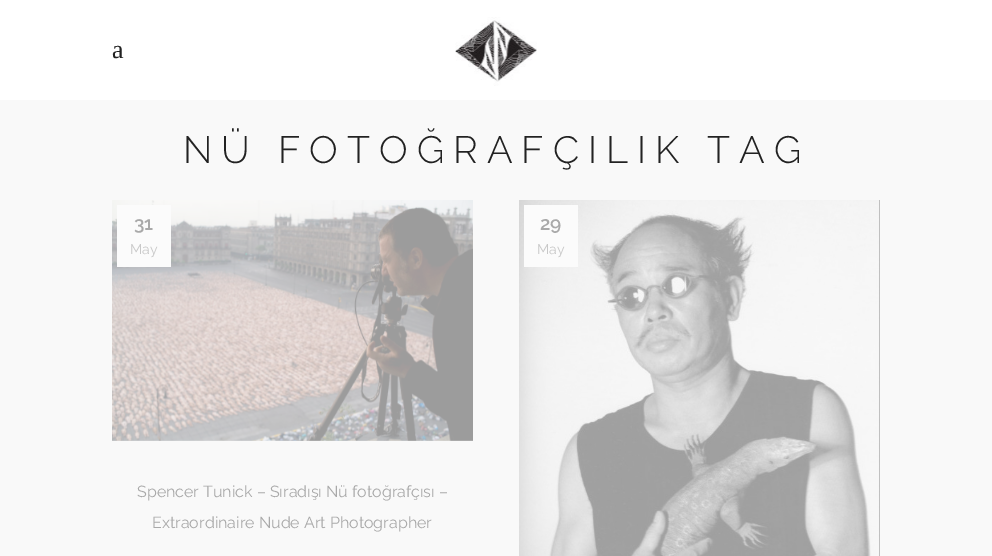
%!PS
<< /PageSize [992 556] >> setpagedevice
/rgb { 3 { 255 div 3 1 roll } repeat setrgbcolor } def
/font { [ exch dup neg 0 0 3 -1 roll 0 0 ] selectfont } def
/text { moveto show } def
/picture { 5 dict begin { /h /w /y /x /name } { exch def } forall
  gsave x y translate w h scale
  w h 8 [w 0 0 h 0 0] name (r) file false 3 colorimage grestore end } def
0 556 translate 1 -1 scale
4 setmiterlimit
249 249 249 rgb
0 0 992 556 rectfill
255 255 255 rgb
0 0 992 100 rectfill
(img_01.rgb) 455 17 82 69 picture
(img_02.rgb) 112 200 361 241 picture
251 251 251 rgb
117 205 54 62 rectfill
(img_03.rgb) 519 200 361 356 picture
524 205 54 62 rectfill
/LiberationSerif-Regular 26 font
34 34 34 rgb
(a) 112 58 text
/Raleway-Light 38 font
183 163 moveto 9 0 (NÜ FOTOĞRAFÇILIK TAG) ashow
/Raleway-SemiBold 19 font
169 169 169 rgb
(31) 134 230 text
/Raleway-Regular 14 font
200 200 200 rgb
(May) 130 254 text
/Raleway-Regular 16 font
169 169 169 rgb
(Spencer Tunick – Sıradışı Nü fotoğrafçısı –) 137 497 text
(Extraordinaire Nude Art Photographer) 152 528 text
/Raleway-SemiBold 19 font
(29) 540 230 text
/Raleway-Regular 14 font
200 200 200 rgb
(May) 537 254 text
showpage
